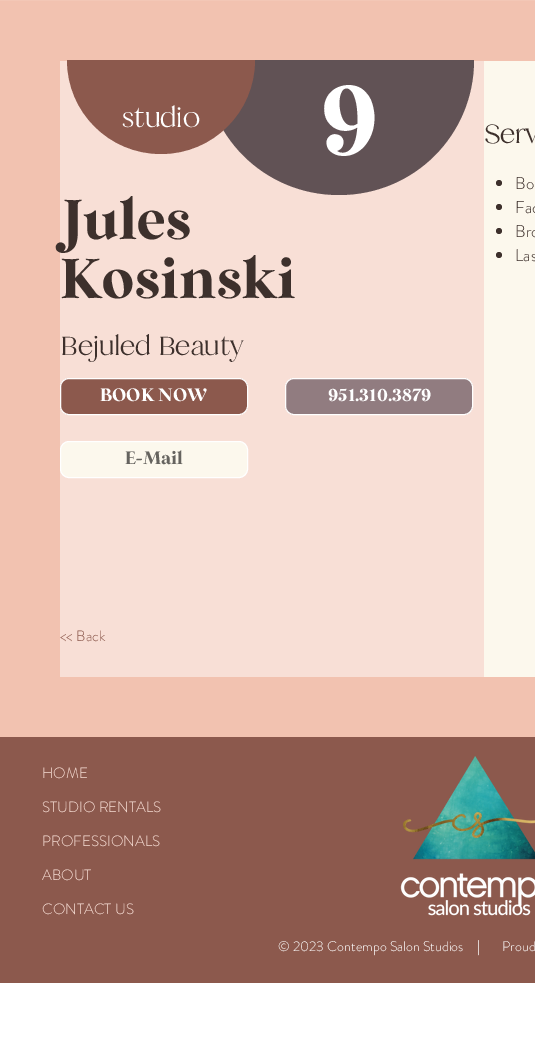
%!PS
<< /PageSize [535 1062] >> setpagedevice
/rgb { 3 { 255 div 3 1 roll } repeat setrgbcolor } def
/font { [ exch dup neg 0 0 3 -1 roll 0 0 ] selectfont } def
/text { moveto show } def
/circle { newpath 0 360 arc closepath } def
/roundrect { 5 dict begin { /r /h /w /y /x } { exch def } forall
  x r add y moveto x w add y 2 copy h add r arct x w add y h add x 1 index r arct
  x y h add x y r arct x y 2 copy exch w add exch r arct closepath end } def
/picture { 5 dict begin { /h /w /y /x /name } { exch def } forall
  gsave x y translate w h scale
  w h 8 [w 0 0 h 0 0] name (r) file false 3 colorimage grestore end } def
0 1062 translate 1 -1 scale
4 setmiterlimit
255 255 255 rgb
0 0 535 1062 rectfill
243 199 182 rgb
0 0 535 1 rectfill
242 194 176 rgb
0 1 535 736 rectfill
248 223 214 rgb
60 61 424 616 rectfill
97 82 85 rgb
339 195 moveto 75 0 135 -60 135 -135 rcurveto -270 0 rlineto 0 75 60 135 135 135 rcurveto closepath fill
140 89 77 rgb
161 154 moveto 52 0 94 -42 94 -94 rcurveto -188 0 rlineto 0 52 42 94 94 94 rcurveto closepath fill
60.5 378.5 187 36 8.5 roundrect gsave fill grestore
255 255 255 rgb
stroke
145 124 128 rgb
285.5 378.5 187 36 8.5 roundrect gsave fill grestore
255 255 255 rgb
stroke
252 248 237 rgb
60.5 441.5 187 36 8.5 roundrect gsave fill grestore
255 255 255 rgb
stroke
252 248 237 rgb
484 61 51 616 rectfill
61 48 44 rgb
499 183 3 circle fill
499 207 3 circle fill
499 231 3 circle fill
499 255 3 circle fill
140 89 77 rgb
0 737 535 246 rectfill
(img_01.rgb) 413 756 122 104 picture
(img_02.rgb) 403 812 132 27 picture
(img_03.rgb) 400 873 135 43 picture
/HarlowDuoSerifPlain-Regular 31 font
255 255 255 rgb
(studio) 122 127 text
/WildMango-Regular 103 font
320 155 moveto -5 0 (9) ashow
/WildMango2-Regular 56 font
61 48 44 rgb
(Jules) 60 239 text
(Kosinski) 60 298 text
/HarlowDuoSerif-Regular 30 font
(Bejuled Beauty) 60 355 text
/WildMango-Regular 18 font
255 255 255 rgb
(BOOK NOW) 100 401 text
(951.310.3879) 328 401 text
101 99 95 rgb
(E-Mail) 125 464 text
/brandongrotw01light-Light 15 font
140 89 77 rgb
(<< Back) 60 641 text
/HarlowDuoSerif-Regular 30 font
61 48 44 rgb
(Serv) 484 143 text
/brandongrotw01light-Light 17 font
(Bo) 515 189 text
(Fac) 515 213 text
(Bro) 515 237 text
(Las) 515 261 text
/brandongrotw01light-Light 15 font
248 223 214 rgb
(HOME) 42 778 text
(STUDIO RENTALS) 42 812 text
(PROFESSIONALS) 42 846 text
(ABOUT) 42 880 text
(CONTACT US) 42 914 text
/brandongrotw01light-Light 14 font
255 255 255 rgb
(© 2023 Contempo Salon Studios) 278 951 text
/brandongrotw01light-Bold 14 font
(|) 477 951 text
/brandongrotw01light-Light 14 font
(Proud) 502 951 text
showpage
